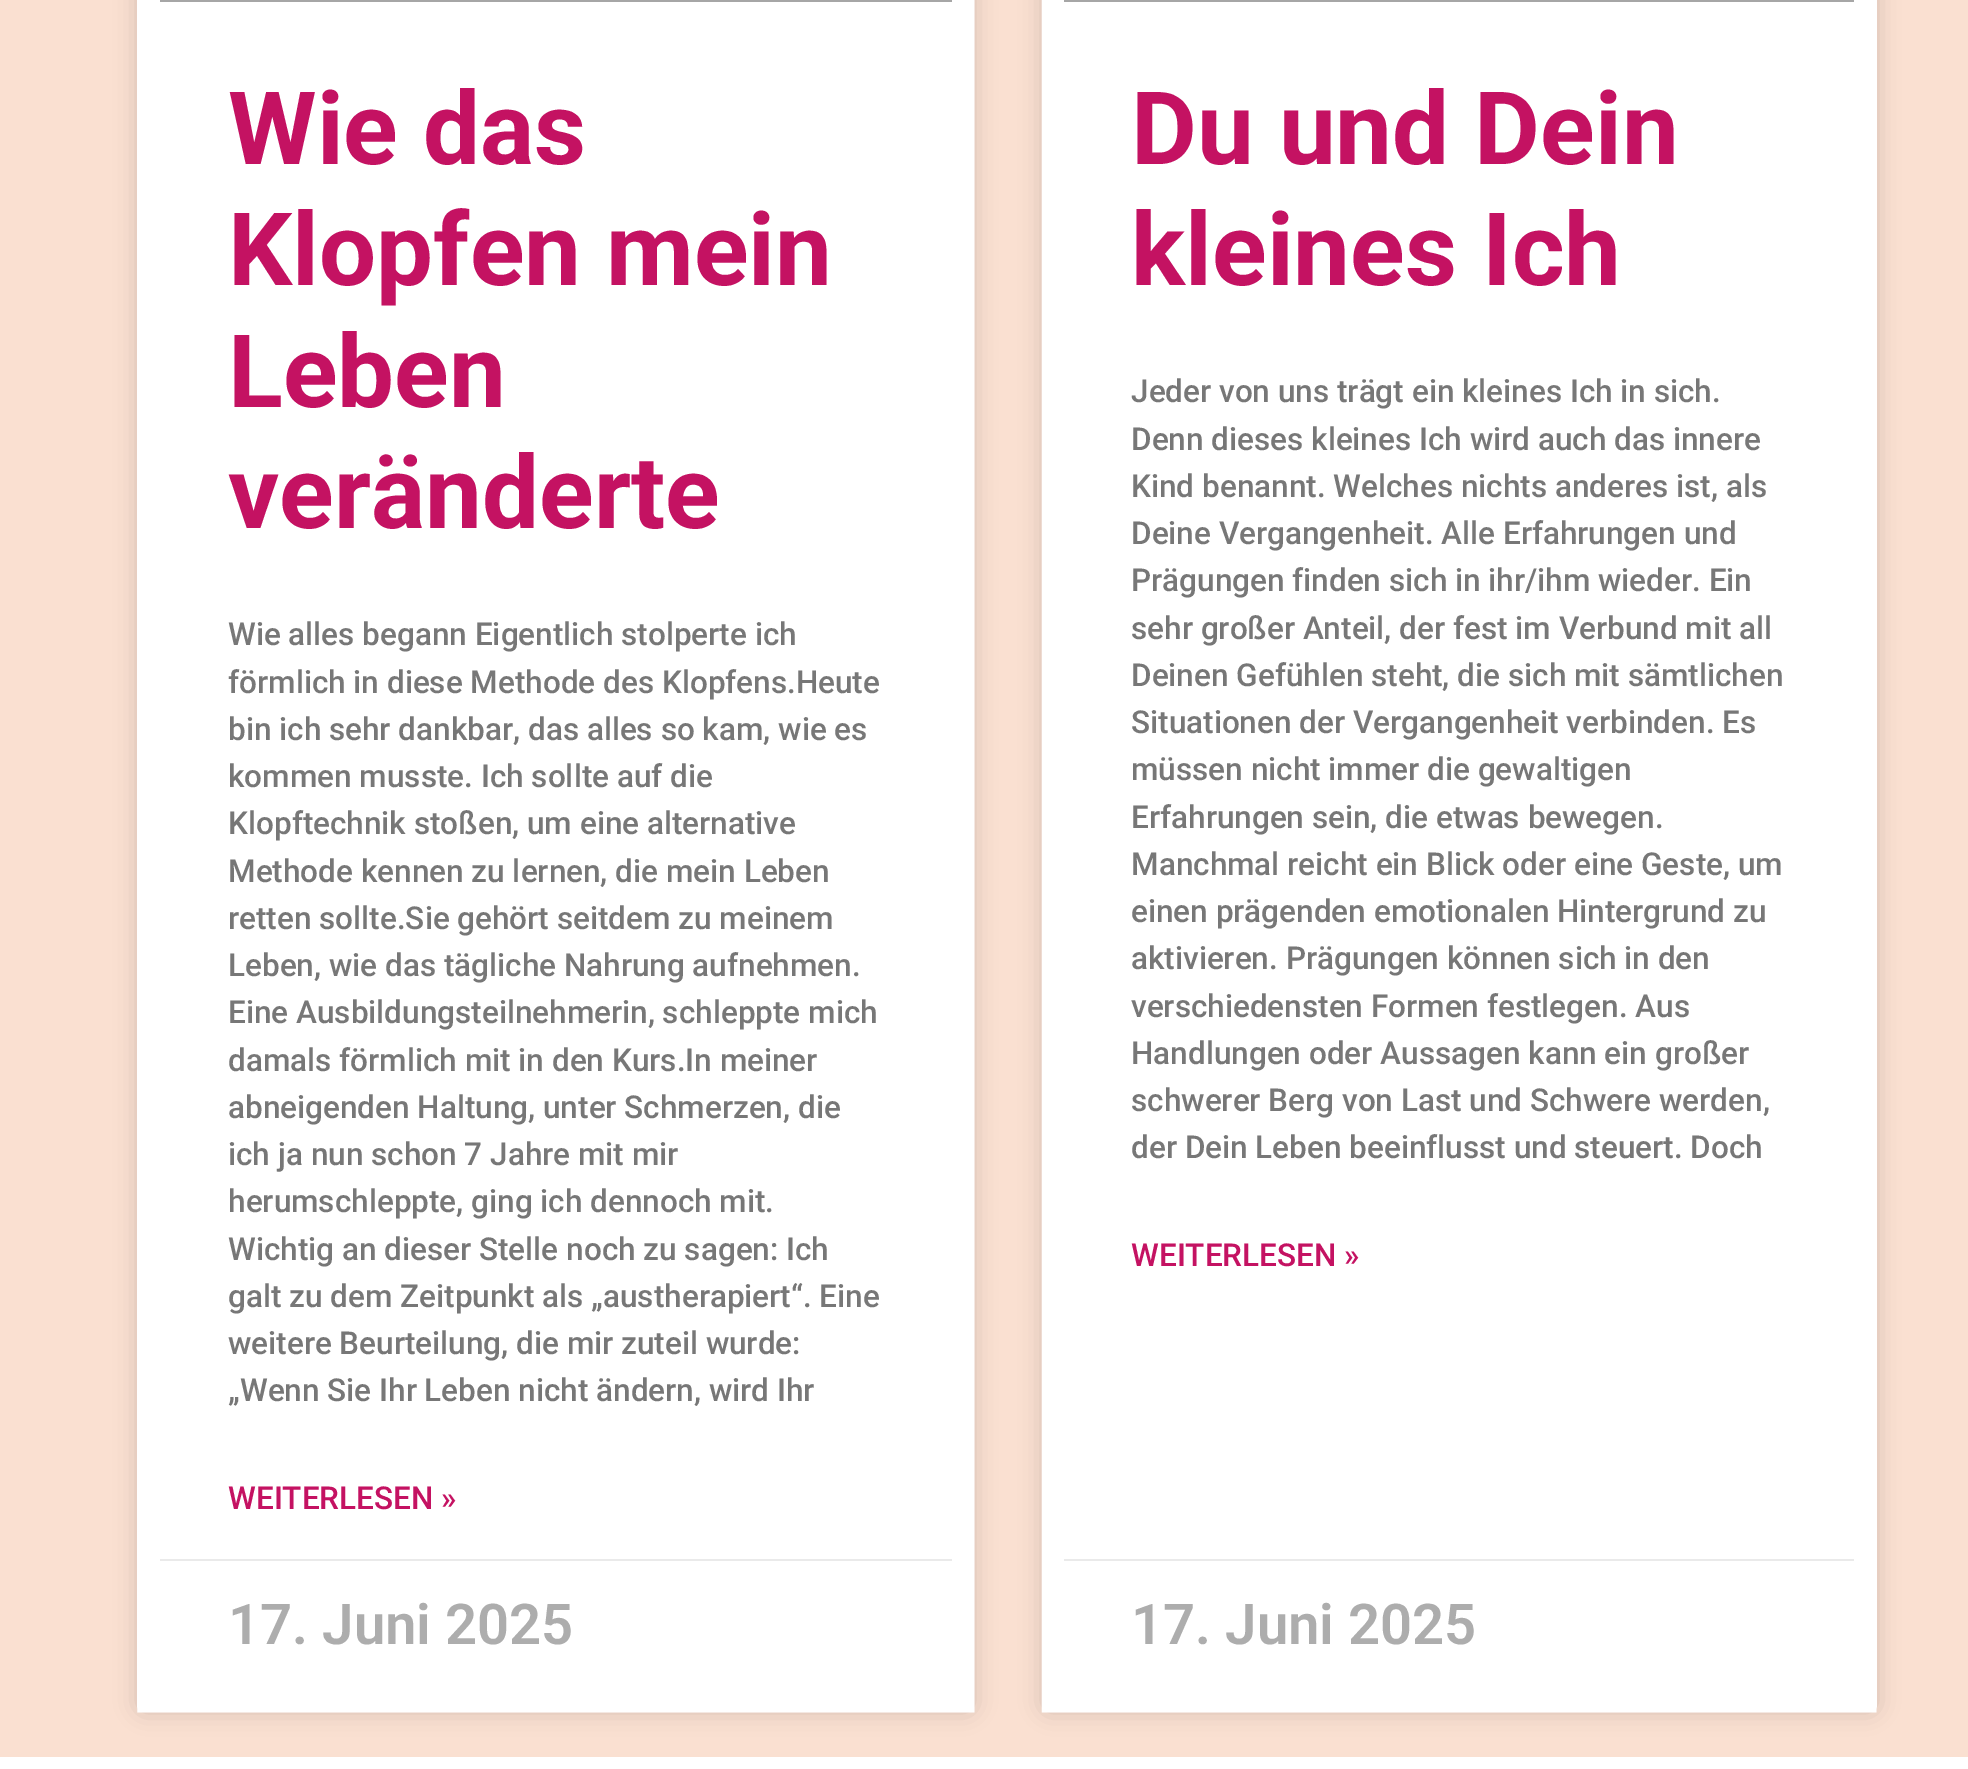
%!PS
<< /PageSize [1968 1769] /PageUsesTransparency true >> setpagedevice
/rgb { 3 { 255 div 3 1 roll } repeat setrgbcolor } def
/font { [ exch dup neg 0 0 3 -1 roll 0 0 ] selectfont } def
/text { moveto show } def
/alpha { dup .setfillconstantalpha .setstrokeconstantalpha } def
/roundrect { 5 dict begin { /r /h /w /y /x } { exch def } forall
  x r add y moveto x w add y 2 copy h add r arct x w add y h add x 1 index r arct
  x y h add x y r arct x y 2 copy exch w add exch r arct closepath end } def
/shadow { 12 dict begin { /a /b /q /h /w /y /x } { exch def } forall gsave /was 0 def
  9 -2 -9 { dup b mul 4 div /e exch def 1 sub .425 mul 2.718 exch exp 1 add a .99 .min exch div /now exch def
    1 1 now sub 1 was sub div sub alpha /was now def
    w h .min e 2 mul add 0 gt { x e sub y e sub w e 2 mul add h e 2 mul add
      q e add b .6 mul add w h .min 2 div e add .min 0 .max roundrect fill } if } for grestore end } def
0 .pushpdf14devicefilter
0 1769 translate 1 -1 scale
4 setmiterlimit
255 255 255 rgb
0 0 1968 1769 rectfill
250 224 209 rgb
0 0 1968 1757 rectfill
0 0 0 rgb
137 -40 837 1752 7 11 0.15 shadow
255 255 255 rgb
137 -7 837 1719 7 roundrect fill
22.5 setlinewidth
148.5 -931.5 moveto 814.5 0 rlineto 0 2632.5 rlineto -814.5 0 rlineto closepath stroke
gsave 160 0 moveto 792 0 rlineto 0 2 rlineto -792 0 rlineto closepath clip newpath
<< /ShadingType 2 /ColorSpace /DeviceRGB /Coords [556 2.2 556 -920] /Extend [true true] /Function << /FunctionType 3 /Domain [0 1] /Functions [<< /FunctionType 2 /Domain [0 1] /C0 [0.651 0.651 0.651] /C1 [1 1 1] /N 1 >> << /FunctionType 2 /Domain [0 1] /C0 [1 1 1] /C1 [1 1 1] /N 1 >>] /Bounds [0.75] /Encode [0 1 0 1] >> >> shfill grestore
234 234 234 rgb
160 1559 792 2 rectfill
0 0 0 rgb
1042 -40 835 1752 7 11 0.15 shadow
255 255 255 rgb
1042 -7 835 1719 7 roundrect fill
1053 -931.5 moveto 812 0 rlineto 0 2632.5 rlineto -812 0 rlineto closepath stroke
gsave 1064 0 moveto 790 0 rlineto 0 2 rlineto -790 0 rlineto closepath clip newpath
<< /ShadingType 2 /ColorSpace /DeviceRGB /Coords [1459 2.2 1459 -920] /Extend [true true] /Function << /FunctionType 3 /Domain [0 1] /Functions [<< /FunctionType 2 /Domain [0 1] /C0 [0.651 0.651 0.651] /C1 [1 1 1] /N 1 >> << /FunctionType 2 /Domain [0 1] /C0 [1 1 1] /C1 [1 1 1] /N 1 >>] /Bounds [0.75] /Encode [0 1 0 1] >> >> shfill grestore
234 234 234 rgb
1064 1559 790 2 rectfill
/Roboto-Bold 101.25 font
196 18 98 rgb
(Wie das) 228 164 text
(Klopfen mein) 228 285 text
(Leben) 228 407 text
(veränderte) 228 528 text
/Roboto-Medium 31.5 font
119 119 119 rgb
(Wie alles begann Eigentlich stolperte ich) 228 645 text
(förmlich in diese Methode des Klopfens.Heute) 228 693 text
(bin ich sehr dankbar, das alles so kam, wie es) 228 740 text
(kommen musste. Ich sollte auf die) 228 787 text
(Klopftechnik stoßen, um eine alternative) 228 834 text
(Methode kennen zu lernen, die mein Leben) 228 882 text
(retten sollte.Sie gehört seitdem zu meinem) 228 929 text
(Leben, wie das tägliche Nahrung aufnehmen.) 228 976 text
(Eine Ausbildungsteilnehmerin, schleppte mich) 228 1023 text
(damals förmlich mit in den Kurs.In meiner) 228 1071 text
(abneigenden Haltung, unter Schmerzen, die) 228 1118 text
(ich ja nun schon 7 Jahre mit mir) 228 1165 text
(herumschleppte, ging ich dennoch mit.) 228 1212 text
(Wichtig an dieser Stelle noch zu sagen: Ich) 228 1260 text
(galt zu dem Zeitpunkt als „austherapiert“. Eine) 228 1307 text
(weitere Beurteilung, die mir zuteil wurde:) 228 1354 text
(„Wenn Sie Ihr Leben nicht ändern, wird Ihr) 228 1401 text
196 18 98 rgb
(WEITERLESEN ») 228 1509 text
/Roboto-SemiBold 56.25 font
173 173 173 rgb
(17. Juni 2025) 228 1644 text
/Roboto-Bold 101.25 font
196 18 98 rgb
(Du und Dein) 1131 164 text
(kleines Ich) 1131 285 text
/Roboto-Medium 31.5 font
119 119 119 rgb
(Jeder von uns trägt ein kleines Ich in sich.) 1131 402 text
(Denn dieses kleines Ich wird auch das innere) 1131 450 text
(Kind benannt. Welches nichts anderes ist, als) 1131 497 text
(Deine Vergangenheit. Alle Erfahrungen und) 1131 544 text
(Prägungen finden sich in ihr/ihm wieder. Ein) 1131 591 text
(sehr großer Anteil, der fest im Verbund mit all) 1131 639 text
(Deinen Gefühlen steht, die sich mit sämtlichen) 1131 686 text
(Situationen der Vergangenheit verbinden. Es) 1131 733 text
(müssen nicht immer die gewaltigen) 1131 780 text
(Erfahrungen sein, die etwas bewegen.) 1131 828 text
(Manchmal reicht ein Blick oder eine Geste, um) 1131 875 text
(einen prägenden emotionalen Hintergrund zu) 1131 922 text
(aktivieren. Prägungen können sich in den) 1131 969 text
(verschiedensten Formen festlegen. Aus) 1131 1017 text
(Handlungen oder Aussagen kann ein großer) 1131 1064 text
(schwerer Berg von Last und Schwere werden,) 1131 1111 text
(der Dein Leben beeinflusst und steuert. Doch) 1131 1158 text
196 18 98 rgb
(WEITERLESEN ») 1131 1266 text
/Roboto-SemiBold 56.25 font
173 173 173 rgb
(17. Juni 2025) 1131 1644 text
.poppdf14devicefilter showpage
